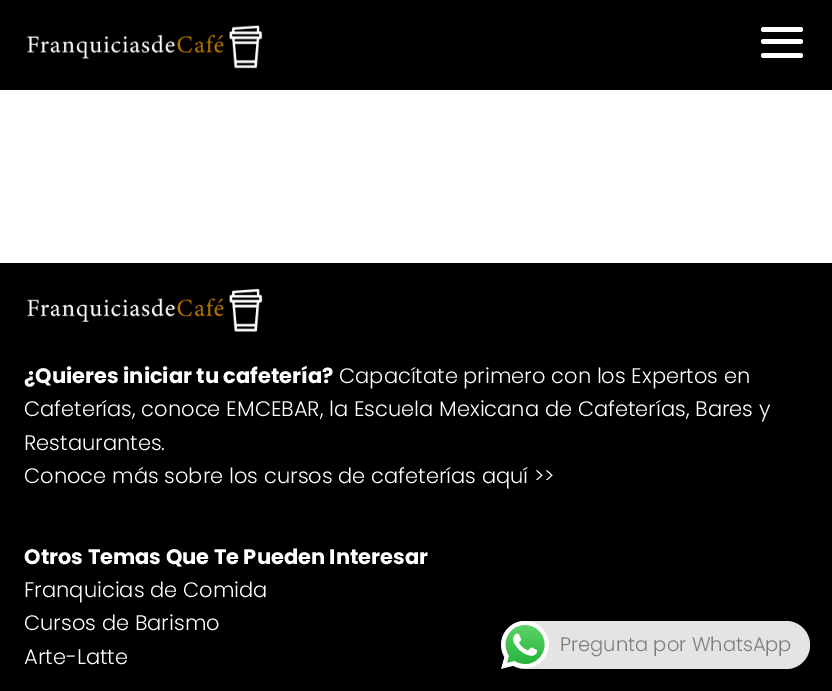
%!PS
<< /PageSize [832 691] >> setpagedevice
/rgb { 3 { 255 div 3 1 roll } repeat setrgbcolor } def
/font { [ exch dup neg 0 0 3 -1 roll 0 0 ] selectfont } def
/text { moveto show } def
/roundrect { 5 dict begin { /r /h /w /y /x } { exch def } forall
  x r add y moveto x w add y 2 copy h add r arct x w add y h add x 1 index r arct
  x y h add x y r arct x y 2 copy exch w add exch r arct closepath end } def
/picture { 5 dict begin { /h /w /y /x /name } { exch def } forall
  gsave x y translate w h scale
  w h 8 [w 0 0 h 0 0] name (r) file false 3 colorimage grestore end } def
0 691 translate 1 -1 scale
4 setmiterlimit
255 255 255 rgb
0 0 832 691 rectfill
0 0 0 rgb
0 0 832 90 rectfill
(img_01.rgb) 27 25 236 44 picture
255 255 255 rgb
761 27 42 5 2.5 roundrect fill
761 39 42 5 2.5 roundrect fill
761 53 42 5 2.5 roundrect fill
0 0 0 rgb
0 263 832 428 rectfill
(img_02.rgb) 27 288 236 44 picture
228 228 228 rgb
501 621 309 48 24 roundrect fill
(img_03.rgb) 501 621 48 48 picture
/Poppins-Bold 21 font
255 255 255 rgb
(¿Quieres iniciar tu cafetería?) 24 383 text
/Poppins-Light 21 font
(Capacítate primero con los Expertos en) 339 383 text
(Cafeterías, conoce EMCEBAR, la Escuela Mexicana de Cafeterías, Bares y) 24 416 text
(Restaurantes.) 24 450 text
(Conoce más sobre los cursos de cafeterías aquí >>) 24 483 text
/Poppins-Bold 21 font
(Otros Temas Que Te Pueden Interesar) 24 564 text
/Poppins-Light 21 font
(Franquicias de Comida) 24 597 text
(Cursos de Barismo) 24 630 text
(Arte-Latte) 24 664 text
/Poppins-Light 19.5 font
127 125 125 rgb
(Pregunta por WhatsApp) 560 651 text
showpage
